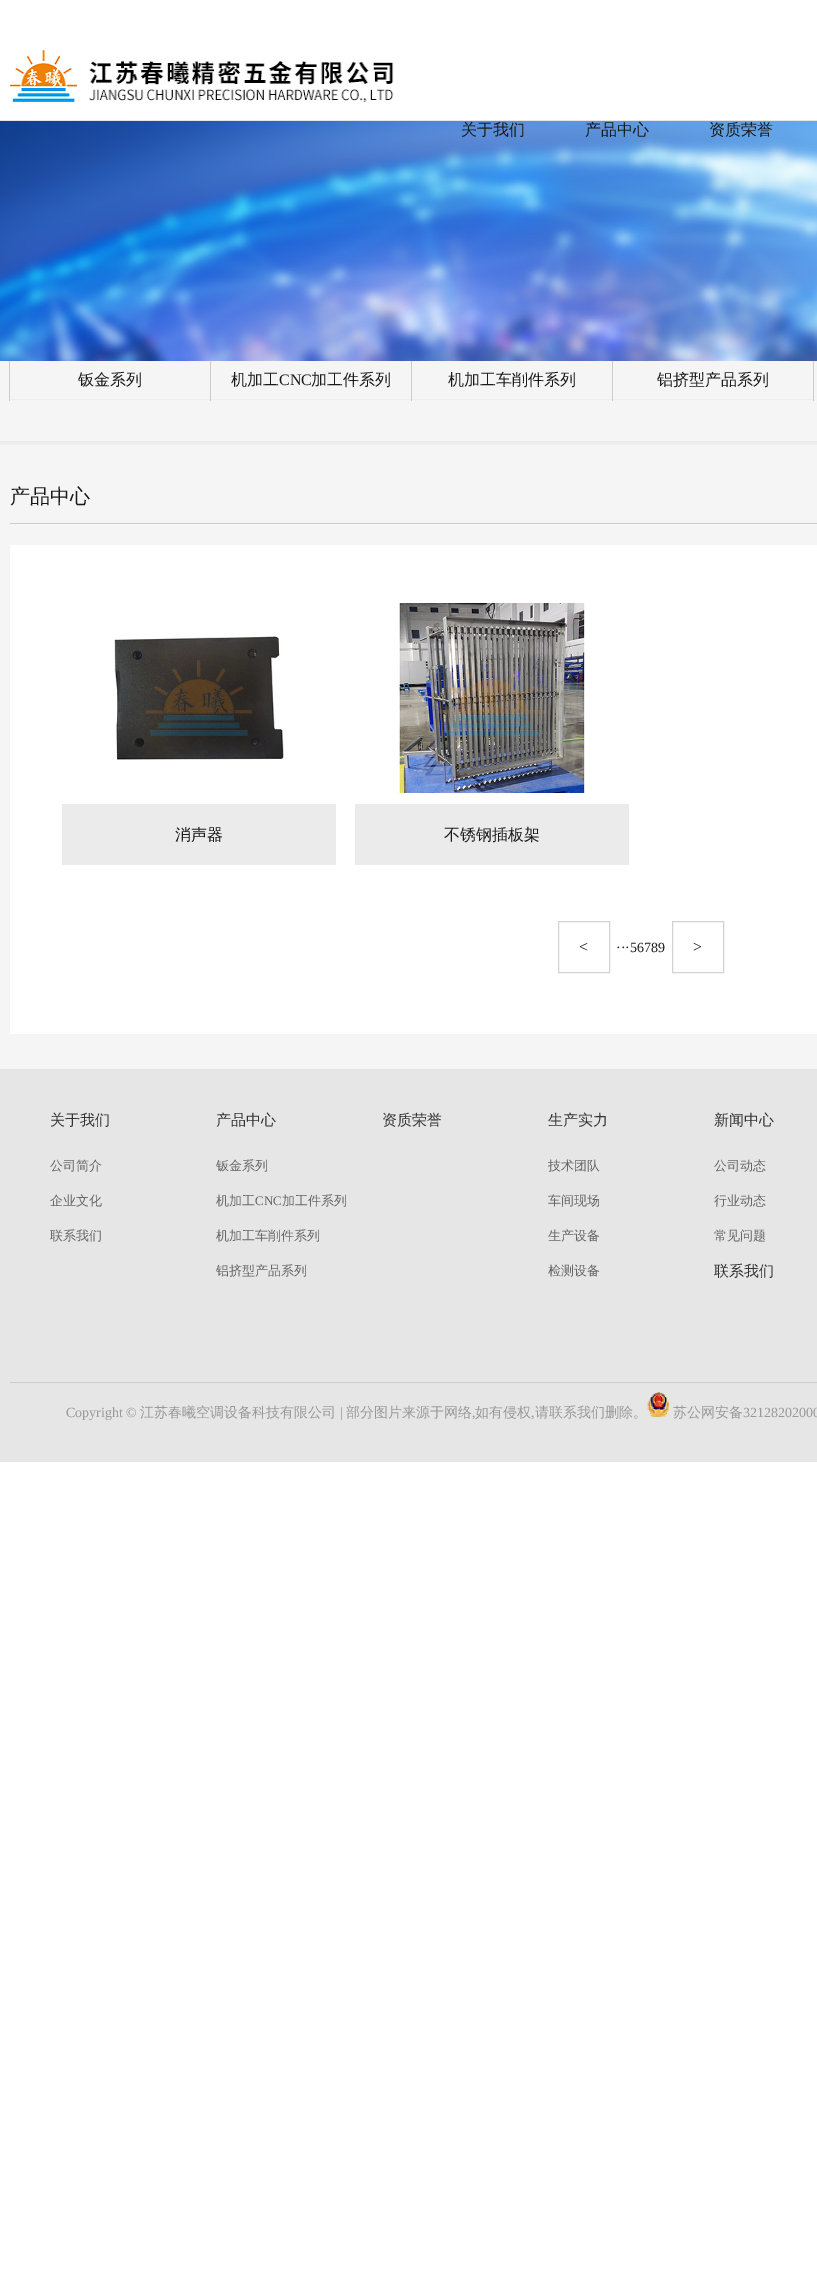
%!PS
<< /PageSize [817 2291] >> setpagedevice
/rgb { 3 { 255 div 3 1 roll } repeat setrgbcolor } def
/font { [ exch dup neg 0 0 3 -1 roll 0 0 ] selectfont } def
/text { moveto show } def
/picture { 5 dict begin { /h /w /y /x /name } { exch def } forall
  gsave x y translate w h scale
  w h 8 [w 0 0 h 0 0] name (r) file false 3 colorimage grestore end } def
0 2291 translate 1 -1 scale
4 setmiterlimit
255 255 255 rgb
0 0 817 2291 rectfill
(img_01.rgb) 0 121 817 240 picture
230 230 230 rgb
0 120 817 1 rectfill
(img_02.rgb) 10 50 384 52 picture
245 245 245 rgb
0 361 817 708 rectfill
(img_03.rgb) 0 441 817 4 picture
204 204 204 rgb
210 361 1 40 rectfill
9 361 1 40 rectfill
238 238 238 rgb
10 399 200 1 rectfill
204 204 204 rgb
411 361 1 40 rectfill
238 238 238 rgb
211 399 200 1 rectfill
204 204 204 rgb
612 361 1 40 rectfill
238 238 238 rgb
412 399 200 1 rectfill
204 204 204 rgb
813 361 1 40 rectfill
238 238 238 rgb
613 399 200 1 rectfill
204 204 204 rgb
10 523 807 1 rectfill
255 255 255 rgb
10 545 807 489 rectfill
(img_04.rgb) 114 636 170 124 picture
235 235 235 rgb
62 804 274 61 rectfill
(img_05.rgb) 399 603 186 190 picture
355 804 274 61 rectfill
210 210 210 rgb
558.5 921.5 51 51 rectstroke
672.5 921.5 51 51 rectstroke
230 230 230 rgb
0 1069 817 393 rectfill
204 204 204 rgb
10 1382 807 1 rectfill
(img_06.rgb) 647 1392 22 25 picture
/WenQuanYiZenHei-Medium 16 font
26 26 26 rgb
(关于我们) 461 135 text
(产品中心) 585 135 text
(资质荣誉) 709 135 text
(钣金系列) 78 385 text
(机加工) 231 385 text
/LiberationSerif-Regular 16 font
(CNC) 279 385 text
/WenQuanYiZenHei-Medium 16 font
(加工件系列) 311 385 text
(机加工车削件系列) 448 385 text
(铝挤型产品系列) 657 385 text
/WenQuanYiZenHei-Medium 20 font
(产品中心) 10 503 text
/WenQuanYiZenHei-Medium 16 font
(消声器) 175 840 text
(不锈钢插板架) 444 840 text
/LiberationSerif-Regular 16 font
(<) 579 952 text
/LiberationSerif-Regular 14 font
(···56789) 616 952 text
/LiberationSerif-Regular 16 font
(>) 693 952 text
/WenQuanYiZenHei-Medium 15 font
51 51 51 rgb
(关于我们) 50 1125 text
/WenQuanYiZenHei-Medium 13 font
102 102 102 rgb
(公司简介) 50 1170 text
(企业文化) 50 1205 text
(联系我们) 50 1240 text
/WenQuanYiZenHei-Medium 15 font
51 51 51 rgb
(产品中心) 216 1125 text
/WenQuanYiZenHei-Medium 13 font
102 102 102 rgb
(钣金系列) 216 1170 text
(机加工) 216 1205 text
/LiberationSerif-Regular 13 font
(CNC) 255 1205 text
/WenQuanYiZenHei-Medium 13 font
(加工件系列) 282 1205 text
(机加工车削件系列) 216 1240 text
(铝挤型产品系列) 216 1275 text
/WenQuanYiZenHei-Medium 15 font
51 51 51 rgb
(资质荣誉) 382 1125 text
(生产实力) 548 1125 text
/WenQuanYiZenHei-Medium 13 font
102 102 102 rgb
(技术团队) 548 1170 text
(车间现场) 548 1205 text
(生产设备) 548 1240 text
(检测设备) 548 1275 text
/WenQuanYiZenHei-Medium 15 font
51 51 51 rgb
(新闻中心) 714 1125 text
/WenQuanYiZenHei-Medium 13 font
102 102 102 rgb
(公司动态) 714 1170 text
(行业动态) 714 1205 text
(常见问题) 714 1240 text
/WenQuanYiZenHei-Medium 15 font
51 51 51 rgb
(联系我们) 714 1276 text
/LiberationSerif-Regular 14 font
153 153 153 rgb
(Copyright ©) 66 1417 text
/WenQuanYiZenHei-Medium 14 font
(江苏春曦空调设备科技有限公司) 140 1417 text
/LiberationSerif-Regular 14 font
(|) 340 1417 text
/WenQuanYiZenHei-Medium 14 font
(部分图片来源于网络) 346 1417 text
/LiberationSerif-Regular 14 font
(,) 472 1417 text
/WenQuanYiZenHei-Medium 14 font
(如有侵权) 475 1417 text
/LiberationSerif-Regular 14 font
(,) 531 1417 text
/WenQuanYiZenHei-Medium 14 font
(请联系我们删除。) 535 1417 text
(苏公网安备) 673 1417 text
/LiberationSerif-Regular 14 font
(32128202000) 743 1417 text
showpage
